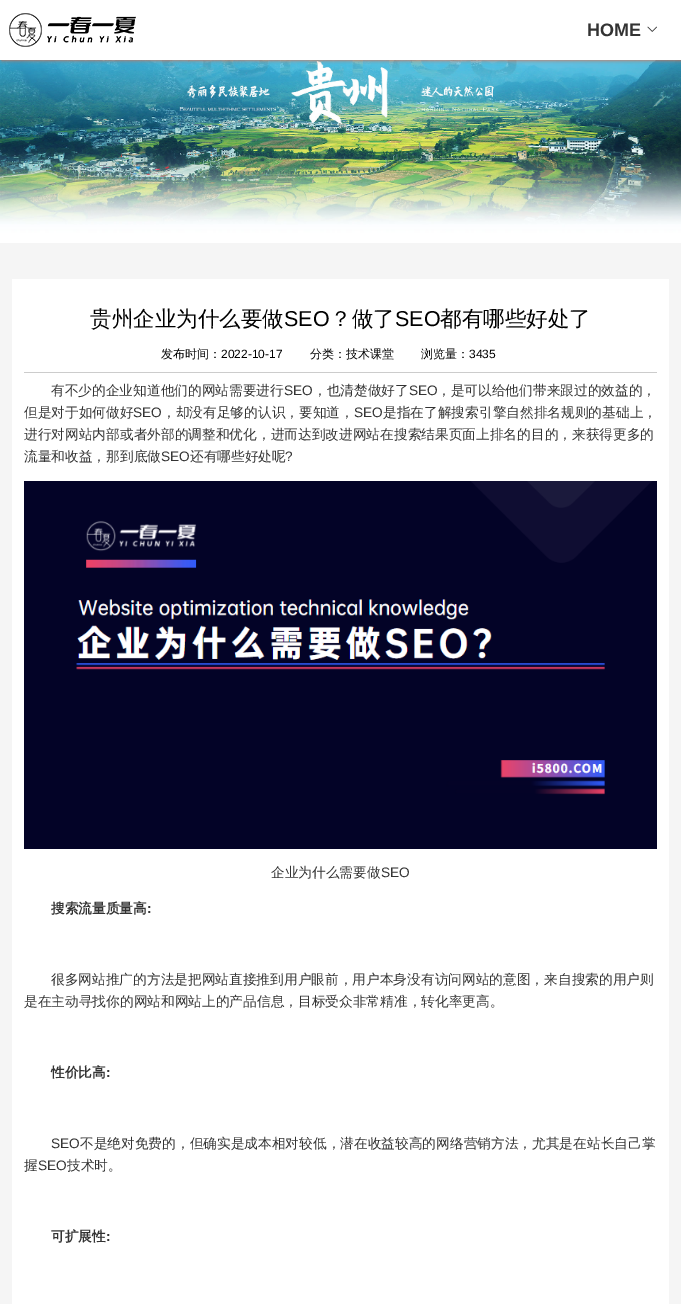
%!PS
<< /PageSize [681 1304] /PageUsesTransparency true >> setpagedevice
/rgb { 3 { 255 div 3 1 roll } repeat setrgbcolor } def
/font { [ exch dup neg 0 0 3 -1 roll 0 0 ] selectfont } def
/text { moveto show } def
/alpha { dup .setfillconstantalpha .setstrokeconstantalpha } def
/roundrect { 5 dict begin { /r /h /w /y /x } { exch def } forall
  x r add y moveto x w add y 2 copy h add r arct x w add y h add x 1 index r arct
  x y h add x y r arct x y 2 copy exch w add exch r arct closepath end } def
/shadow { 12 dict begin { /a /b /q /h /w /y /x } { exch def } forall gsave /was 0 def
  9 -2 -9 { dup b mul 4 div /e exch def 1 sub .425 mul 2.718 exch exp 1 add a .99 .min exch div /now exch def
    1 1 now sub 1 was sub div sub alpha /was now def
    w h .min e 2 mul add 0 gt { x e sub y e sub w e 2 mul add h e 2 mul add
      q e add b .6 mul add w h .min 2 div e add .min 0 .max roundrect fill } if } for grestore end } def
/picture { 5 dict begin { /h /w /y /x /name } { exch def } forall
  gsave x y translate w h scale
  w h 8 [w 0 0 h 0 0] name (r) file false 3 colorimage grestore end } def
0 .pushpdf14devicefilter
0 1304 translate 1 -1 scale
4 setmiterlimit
245 245 245 rgb
0 0 681 1304 rectfill
(img_03.rgb) 0 60 681 183 picture
255 96 46 rgb
2 0 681 60 0 2 1 shadow
255 255 255 rgb
0 0 681 60 rectfill
(img_01.rgb) 9 13 127 34 picture
(img_02.rgb) 647 26 10 6 picture
12 279 657 1025 rectfill
204 204 204 rgb
24 372 633 1 rectfill
(img_04.rgb) 24 481 633 368 picture
/LiberationSans-Bold 18 font
51 51 51 rgb
(HOME) 587 36 text
/WenQuanYiZenHei-Medium 21.5 font
0 0 0 rgb
(贵州企业为什么要做) 90 326 text
/LiberationSans-Regular 21.5 font
(SEO) 284 326 text
/WenQuanYiZenHei-Medium 21.5 font
(？做了) 330 326 text
/LiberationSans-Regular 21.5 font
(SEO) 395 326 text
/WenQuanYiZenHei-Medium 21.5 font
(都有哪些好处了) 440 326 text
/WenQuanYiZenHei-Medium 12 font
(发布时间：) 161 358 text
/LiberationSans-Regular 12 font
(2022-10-17) 221 358 text
/WenQuanYiZenHei-Medium 12 font
(分类：技术课堂) 310 358 text
(浏览量：) 421 358 text
/LiberationSans-Regular 12 font
(3435) 469 358 text
/WenQuanYiZenHei-Medium 13.7 font
51 51 51 rgb
(有不少的企业知道他们的网站需要进行) 51 395 text
/LiberationSans-Regular 13.7 font
(SEO) 284 395 text
/WenQuanYiZenHei-Medium 13.7 font
(，也清楚做好了) 313 395 text
/LiberationSans-Regular 13.7 font
(SEO) 409 395 text
/WenQuanYiZenHei-Medium 13.7 font
(，是可以给他们带来跟过的效益的，) 437 395 text
(但是对于如何做好) 24 417 text
/LiberationSans-Regular 13.7 font
(SEO) 133 417 text
/WenQuanYiZenHei-Medium 13.7 font
(，却没有足够的认识，要知道，) 162 417 text
/LiberationSans-Regular 13.7 font
(SEO) 354 417 text
/WenQuanYiZenHei-Medium 13.7 font
(是指在了解搜索引擎自然排名规则的基础上，) 383 417 text
(进行对网站内部或者外部的调整和优化，进而达到改进网站在搜索结果页面上排名的目的，来获得更多的) 24 439 text
(流量和收益，那到底做) 24 461 text
/LiberationSans-Regular 13.7 font
(SEO) 161 461 text
/WenQuanYiZenHei-Medium 13.7 font
(还有哪些好处呢) 190 461 text
/LiberationSans-Regular 13.7 font
(?) 285 461 text
/WenQuanYiZenHei-Medium 13.7 font
(企业为什么需要做) 271 877 text
/LiberationSans-Regular 13.7 font
(SEO) 381 877 text
/WenQuanYiZenHei-Bold 13.7 font
(搜索流量质量高) 51 913 text
/LiberationSans-Bold 13.7 font
(:) 147 913 text
/WenQuanYiZenHei-Medium 13.7 font
(很多网站推广的方法是把网站直接推到用户眼前，用户本身没有访问网站的意图，来自搜索的用户则) 51 984 text
(是在主动寻找你的网站和网站上的产品信息，目标受众非常精准，转化率更高。) 24 1006 text
/WenQuanYiZenHei-Bold 13.7 font
(性价比高) 51 1077 text
/LiberationSans-Bold 13.7 font
(:) 106 1077 text
/LiberationSans-Regular 13.7 font
(SEO) 51 1148 text
/WenQuanYiZenHei-Medium 13.7 font
(不是绝对免费的，但确实是成本相对较低，潜在收益较高的网络营销方法，尤其是在站长自己掌) 80 1148 text
(握) 24 1170 text
/LiberationSans-Regular 13.7 font
(SEO) 38 1170 text
/WenQuanYiZenHei-Medium 13.7 font
(技术时。) 67 1170 text
/WenQuanYiZenHei-Bold 13.7 font
(可扩展性) 51 1241 text
/LiberationSans-Bold 13.7 font
(:) 106 1241 text
.poppdf14devicefilter showpage
